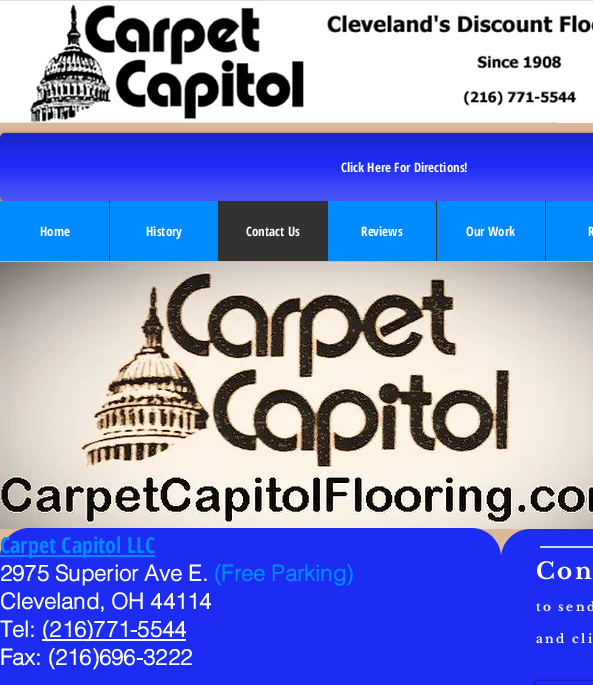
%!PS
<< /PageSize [593 685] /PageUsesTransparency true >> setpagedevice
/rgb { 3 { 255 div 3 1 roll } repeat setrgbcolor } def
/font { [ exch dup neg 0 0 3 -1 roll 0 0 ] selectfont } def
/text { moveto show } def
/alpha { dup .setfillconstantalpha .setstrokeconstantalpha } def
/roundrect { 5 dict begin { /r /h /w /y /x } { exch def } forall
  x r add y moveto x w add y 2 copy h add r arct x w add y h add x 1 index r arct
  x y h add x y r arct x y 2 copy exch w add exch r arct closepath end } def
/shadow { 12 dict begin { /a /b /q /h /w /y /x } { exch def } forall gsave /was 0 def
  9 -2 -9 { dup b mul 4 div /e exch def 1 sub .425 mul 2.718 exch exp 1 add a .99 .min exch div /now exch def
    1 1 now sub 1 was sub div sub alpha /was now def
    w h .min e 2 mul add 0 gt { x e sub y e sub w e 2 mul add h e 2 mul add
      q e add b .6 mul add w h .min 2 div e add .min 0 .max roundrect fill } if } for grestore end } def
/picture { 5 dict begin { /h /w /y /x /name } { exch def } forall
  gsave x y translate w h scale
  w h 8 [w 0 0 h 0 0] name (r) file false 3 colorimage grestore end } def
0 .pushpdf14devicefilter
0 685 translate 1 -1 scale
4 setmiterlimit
219 184 154 rgb
0 0 593 685 rectfill
(img_01.rgb) 0 0 593 123 picture
0 0 0 rgb
0 134 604 68 5 2 0.6 shadow
29 44 243 rgb
0 133 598 68 5 roundrect fill
(img_02.rgb) 0 133 593 26 picture
(img_03.rgb) 0 168 593 33 picture
0 138 252 rgb
0 201 593 60 rectfill
51 51 51 rgb
109 201 1 60 rectfill
50 50 50 rgb
218 201 109 60 rectfill
51 51 51 rgb
327 201 1 60 rectfill
436 201 1 60 rectfill
545 201 1 60 rectfill
(img_04.rgb) 0 262 593 267 picture
29 44 243 rgb
0 528 501 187 30 roundrect fill
0 138 252 rgb
0 555 155 2 rectfill
255 255 255 rgb
42 639 144 2 rectfill
29 44 243 rgb
501 529 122 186 30 roundrect fill
202 221 230 rgb
540 546 53 2 rectfill
gsave
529 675 moveto 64 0 rlineto 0 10 rlineto -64 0 rlineto closepath 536 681 moveto 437 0 rlineto 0 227 rlineto -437 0 rlineto closepath eoclip newpath
0 0 0 rgb
536 682 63 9 0 2 0.6 shadow
grestore
/OpenSansCondensed-Bold 13 font
255 255 255 rgb
(Click Here For Directions!) 341 172 text
(Home) 40 236 text
(History) 146 236 text
(Contact Us) 246 236 text
(Reviews) 361 236 text
(Our Work) 466 236 text
(R) 588 236 text
/OpenSansCondensed-Bold 22 font
0 138 252 rgb
(Carpet Capitol LLC) 0 553 text
/helvetica-Bold 22 font
255 255 255 rgb
(2975 Superior Ave E.) 0 581 text
0 138 252 rgb
(\(Free Parking\)) 214 581 text
255 255 255 rgb
(Cleveland, OH 44114) 0 609 text
(Tel:) 0 637 text
(\(216\)771-5544) 42 637 text
(Fax: \(216\)696-3222) 0 665 text
/LibreBaskerville-Bold 23 font
536 579 moveto 2.25 0 (Con) ashow
/LibreBaskerville-Bold 12 font
536 611 moveto 2.25 0 (to send) ashow
536 643 moveto 2.25 0 (and cli) ashow
.poppdf14devicefilter showpage
